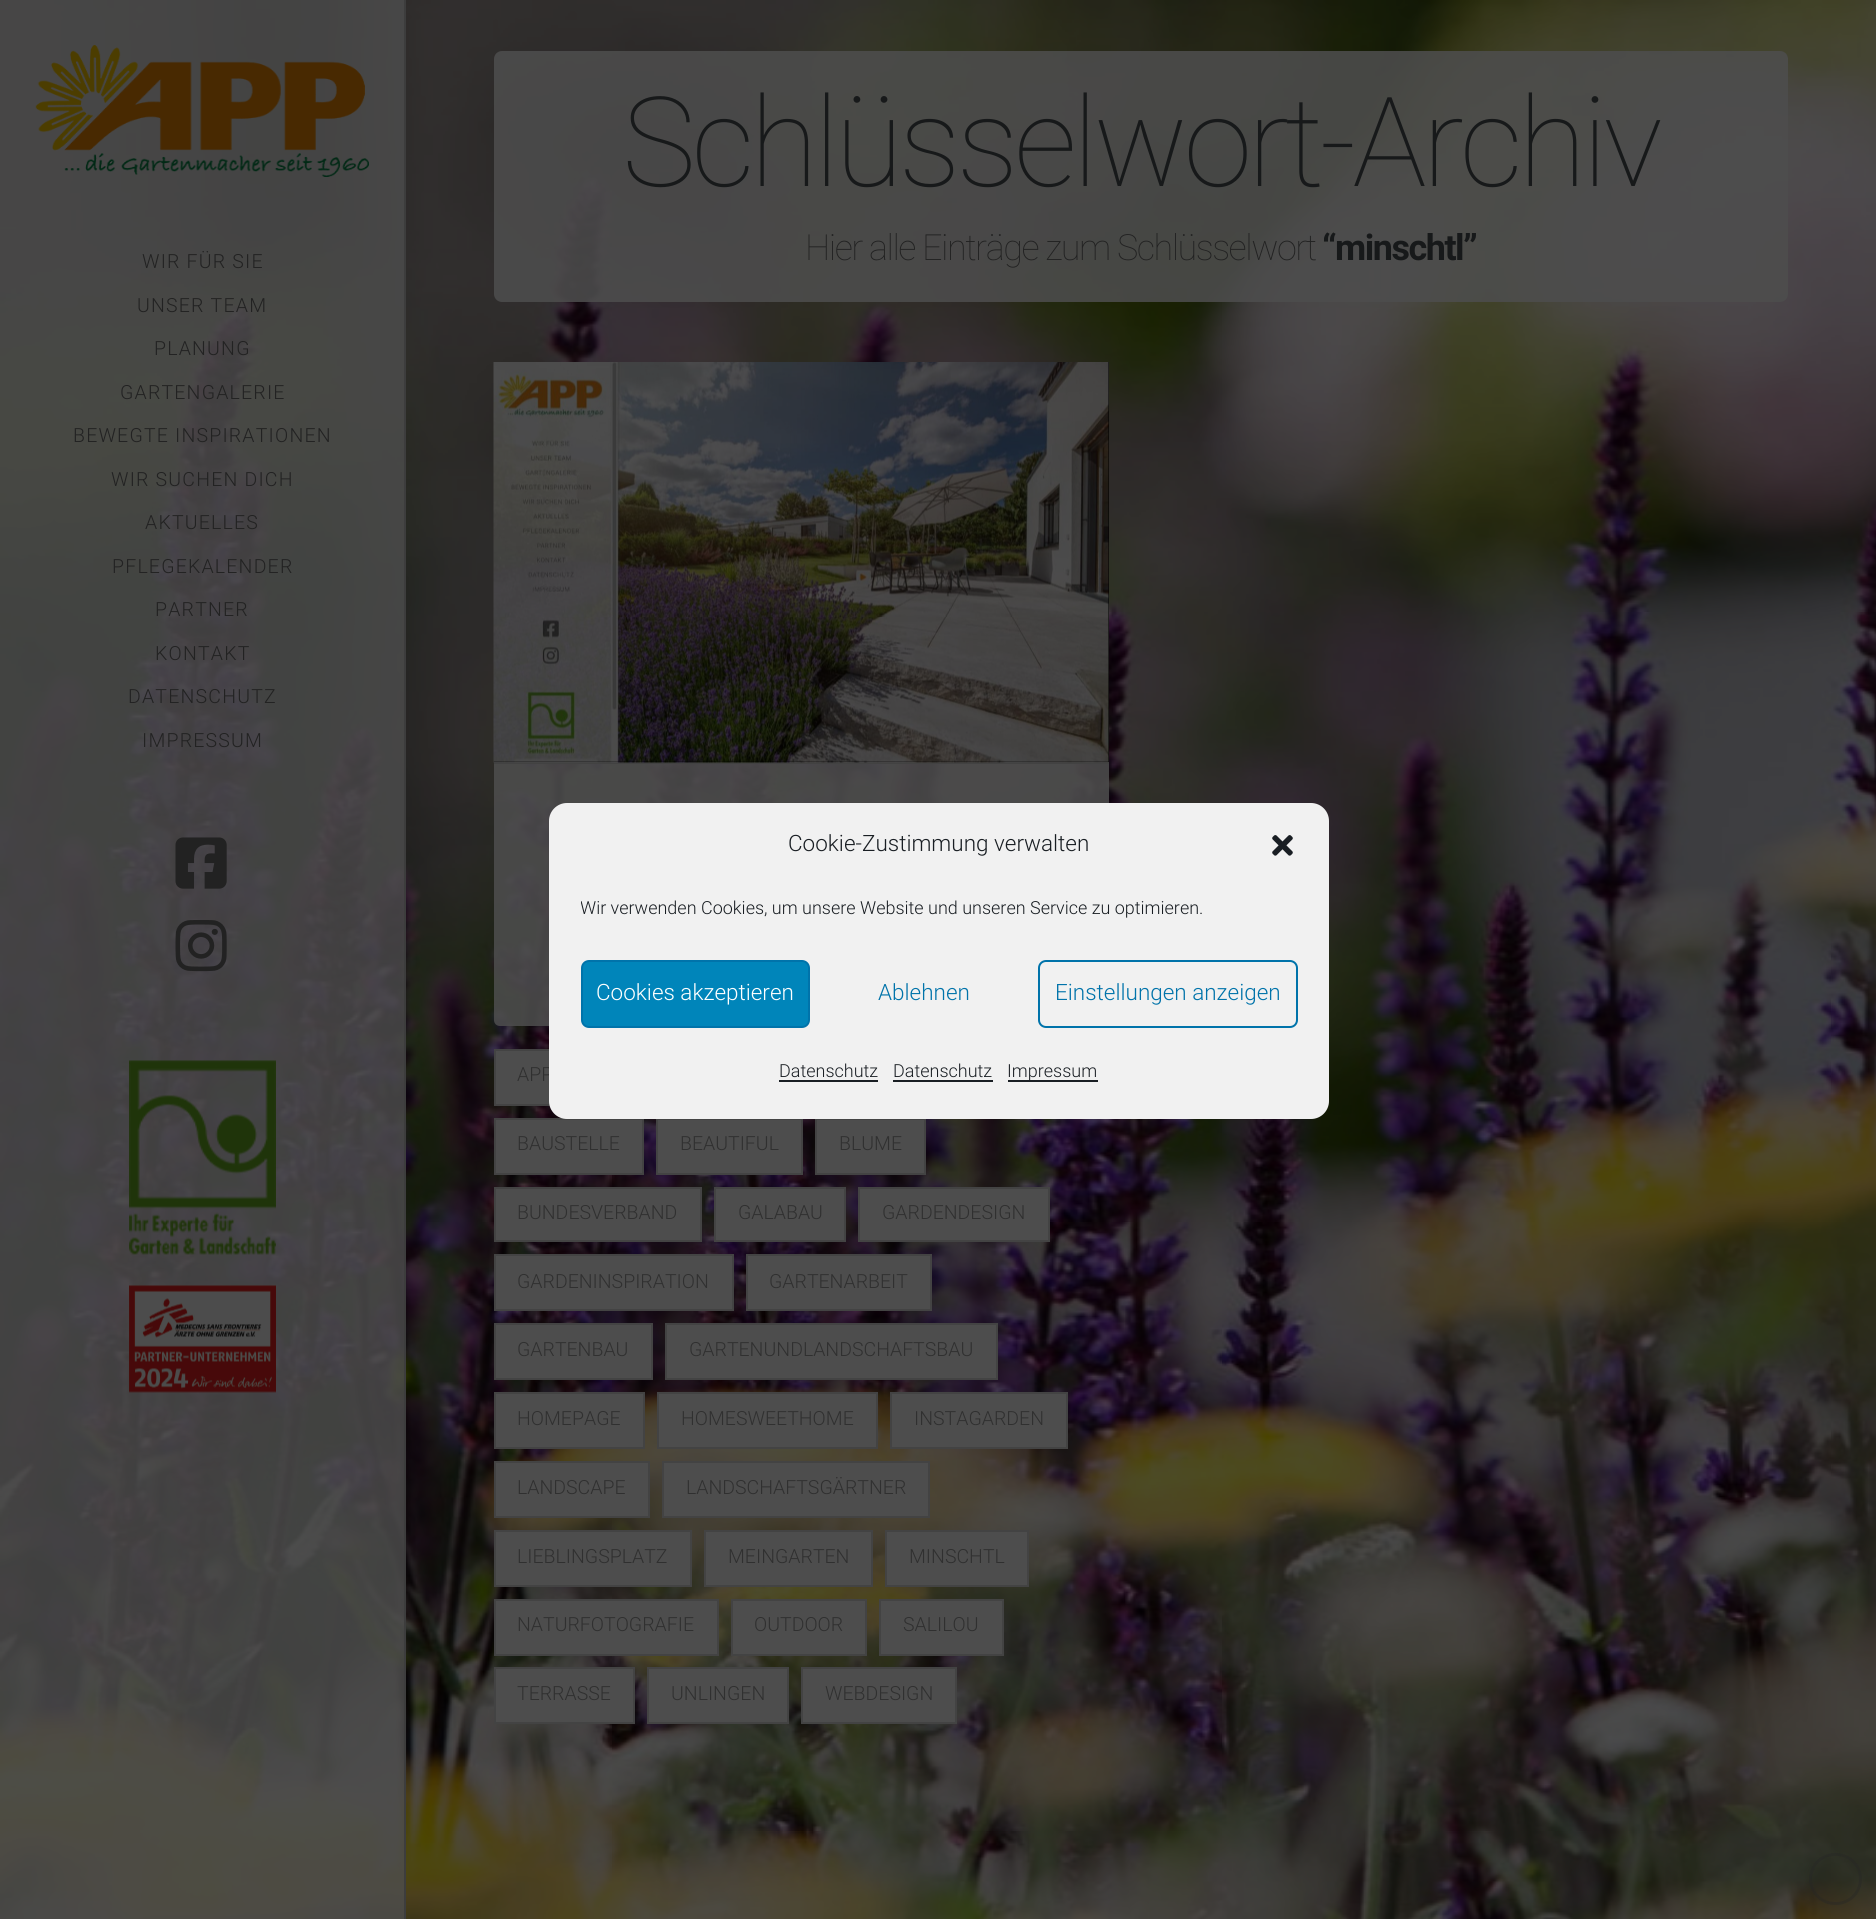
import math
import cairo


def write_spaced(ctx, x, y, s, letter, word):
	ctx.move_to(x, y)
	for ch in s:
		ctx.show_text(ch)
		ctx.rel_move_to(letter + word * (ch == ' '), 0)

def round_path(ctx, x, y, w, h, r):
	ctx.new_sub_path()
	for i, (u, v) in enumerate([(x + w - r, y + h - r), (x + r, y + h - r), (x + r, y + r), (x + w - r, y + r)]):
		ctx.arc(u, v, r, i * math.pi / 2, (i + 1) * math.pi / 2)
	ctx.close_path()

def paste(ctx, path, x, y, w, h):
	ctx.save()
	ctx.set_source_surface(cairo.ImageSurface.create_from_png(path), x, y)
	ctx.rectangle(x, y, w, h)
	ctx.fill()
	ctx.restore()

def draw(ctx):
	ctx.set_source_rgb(1, 1, 1)
	ctx.paint()
	paste(ctx, 'media/1.png', 0, 0, 1876, 1919)
	ctx.set_source_rgba(0.302, 0.302, 0.302, 0.87)
	round_path(ctx, 494, 51, 1294, 251, 8)
	ctx.fill()
	ctx.select_font_face('Roboto Thin')
	ctx.set_font_size(124.75)
	ctx.set_source_rgb(0.09, 0.098, 0.102)
	write_spaced(ctx, 622, 186, 'Schlüsselwort-Archiv', -4.5, 0)
	ctx.set_font_size(36)
	ctx.set_source_rgb(0.133, 0.133, 0.133)
	write_spaced(ctx, 805, 260, 'Hier alle Einträge zum Schlüsselwort', -1.5, 0)
	ctx.select_font_face('Roboto', cairo.FONT_SLANT_NORMAL, cairo.FONT_WEIGHT_BOLD)
	ctx.set_source_rgb(0.09, 0.098, 0.102)
	write_spaced(ctx, 1322, 260, '“minschtl”', -1.5, 0)
	ctx.set_source_rgba(0.302, 0.302, 0.302, 0.82)
	ctx.rectangle(0, 0, 404, 1919)
	ctx.fill()
	ctx.set_source_rgb(0.239, 0.239, 0.239)
	ctx.rectangle(404, 0, 2, 1919)
	ctx.fill()
	paste(ctx, 'media/2.png', 35, 45, 334, 132)
	ctx.select_font_face('Roboto Light')
	ctx.set_font_size(19.5)
	ctx.set_source_rgb(0.133, 0.133, 0.133)
	for x, y, s in [
		(142, 268, 'WIR FÜR SIE'),
		(137, 312, 'UNSER TEAM'),
		(154, 355, 'PLANUNG'),
		(120, 399, 'GARTENGALERIE'),
		(73, 442, 'BEWEGTE INSPIRATIONEN'),
		(111, 486, 'WIR SUCHEN DICH'),
		(145, 529, 'AKTUELLES'),
		(112, 573, 'PFLEGEKALENDER'),
		(155, 616, 'PARTNER'),
		(155, 660, 'KONTAKT'),
		(128, 703, 'DATENSCHUTZ'),
		(142, 747, 'IMPRESSUM'),
	]:
		write_spaced(ctx, x, y, s, 1.2, 0)
	paste(ctx, 'media/3.png', 175, 837, 52, 52)
	paste(ctx, 'media/4.png', 175, 920, 52, 52)
	paste(ctx, 'media/5.png', 129, 1060, 147, 195)
	paste(ctx, 'media/6.png', 129, 1285, 147, 108)
	ctx.set_source_rgb(0.259, 0.259, 0.259)
	ctx.rectangle(494, 762, 615, 2)
	ctx.fill()
	ctx.set_source_rgb(0, 0, 0)
	ctx.rectangle(494, 362, 615, 400)
	ctx.fill()
	paste(ctx, 'media/7.png', 493, 362, 616, 401)
	ctx.set_source_rgba(0.302, 0.302, 0.302, 0.87)
	ctx.new_path()
	ctx.move_to(494, 764)
	ctx.line_to(1109, 764)
	ctx.line_to(1109, 1020)
	ctx.curve_to(1109, 1023.5, 1106.5, 1026, 1103, 1026)
	ctx.line_to(500, 1026)
	ctx.curve_to(496.5, 1026, 494, 1023.5, 494, 1020)
	ctx.close_path()
	ctx.fill()
	ctx.set_source_rgb(0.302, 0.302, 0.302)
	ctx.rectangle(496, 1051, 54, 53)
	ctx.fill()
	ctx.rectangle(495, 1050, 265, 55)
	ctx.set_source_rgb(0.263, 0.263, 0.263)
	ctx.stroke()
	ctx.set_source_rgb(0.188, 0.188, 0.188)
	ctx.move_to(517, 1081)
	ctx.show_text('APP')
	ctx.set_source_rgb(0.302, 0.302, 0.302)
	ctx.rectangle(495, 1119, 148, 55)
	ctx.fill_preserve()
	ctx.set_source_rgb(0.263, 0.263, 0.263)
	ctx.stroke()
	ctx.set_source_rgb(0.188, 0.188, 0.188)
	ctx.move_to(517, 1150)
	ctx.show_text('BAUSTELLE')
	ctx.set_source_rgb(0.302, 0.302, 0.302)
	ctx.rectangle(657, 1119, 145, 55)
	ctx.fill_preserve()
	ctx.set_source_rgb(0.263, 0.263, 0.263)
	ctx.stroke()
	ctx.set_source_rgb(0.188, 0.188, 0.188)
	ctx.move_to(680, 1150)
	ctx.show_text('BEAUTIFUL')
	ctx.set_source_rgb(0.302, 0.302, 0.302)
	ctx.rectangle(816, 1119, 109, 55)
	ctx.fill_preserve()
	ctx.set_source_rgb(0.263, 0.263, 0.263)
	ctx.stroke()
	ctx.set_source_rgb(0.188, 0.188, 0.188)
	ctx.move_to(839, 1150)
	ctx.show_text('BLUME')
	ctx.set_source_rgb(0.302, 0.302, 0.302)
	ctx.rectangle(495, 1188, 206, 53)
	ctx.fill_preserve()
	ctx.set_source_rgb(0.263, 0.263, 0.263)
	ctx.stroke()
	ctx.set_source_rgb(0.188, 0.188, 0.188)
	ctx.move_to(517, 1219)
	ctx.show_text('BUNDESVERBAND')
	ctx.set_source_rgb(0.302, 0.302, 0.302)
	ctx.rectangle(715, 1188, 130, 53)
	ctx.fill_preserve()
	ctx.set_source_rgb(0.263, 0.263, 0.263)
	ctx.stroke()
	ctx.set_source_rgb(0.188, 0.188, 0.188)
	ctx.move_to(738, 1219)
	ctx.show_text('GALABAU')
	ctx.set_source_rgb(0.302, 0.302, 0.302)
	ctx.rectangle(859, 1188, 190, 53)
	ctx.fill_preserve()
	ctx.set_source_rgb(0.263, 0.263, 0.263)
	ctx.stroke()
	ctx.set_source_rgb(0.188, 0.188, 0.188)
	ctx.move_to(882, 1219)
	ctx.show_text('GARDENDESIGN')
	ctx.set_source_rgb(0.302, 0.302, 0.302)
	ctx.rectangle(495, 1255, 238, 55)
	ctx.fill_preserve()
	ctx.set_source_rgb(0.263, 0.263, 0.263)
	ctx.stroke()
	ctx.set_source_rgb(0.188, 0.188, 0.188)
	ctx.move_to(517, 1288)
	ctx.show_text('GARDENINSPIRATION')
	ctx.set_source_rgb(0.302, 0.302, 0.302)
	ctx.rectangle(747, 1255, 184, 55)
	ctx.fill_preserve()
	ctx.set_source_rgb(0.263, 0.263, 0.263)
	ctx.stroke()
	ctx.set_source_rgb(0.188, 0.188, 0.188)
	ctx.move_to(769, 1288)
	ctx.show_text('GARTENARBEIT')
	ctx.set_source_rgb(0.302, 0.302, 0.302)
	ctx.rectangle(495, 1324, 157, 55)
	ctx.fill_preserve()
	ctx.set_source_rgb(0.263, 0.263, 0.263)
	ctx.stroke()
	ctx.set_source_rgb(0.188, 0.188, 0.188)
	ctx.move_to(517, 1356)
	ctx.show_text('GARTENBAU')
	ctx.set_source_rgb(0.302, 0.302, 0.302)
	ctx.rectangle(666, 1324, 331, 55)
	ctx.fill_preserve()
	ctx.set_source_rgb(0.263, 0.263, 0.263)
	ctx.stroke()
	ctx.set_source_rgb(0.188, 0.188, 0.188)
	ctx.move_to(689, 1356)
	ctx.show_text('GARTENUNDLANDSCHAFTSBAU')
	ctx.set_source_rgb(0.302, 0.302, 0.302)
	ctx.rectangle(495, 1393, 149, 55)
	ctx.fill_preserve()
	ctx.set_source_rgb(0.263, 0.263, 0.263)
	ctx.stroke()
	ctx.set_source_rgb(0.188, 0.188, 0.188)
	ctx.move_to(517, 1425)
	ctx.show_text('HOMEPAGE')
	ctx.set_source_rgb(0.302, 0.302, 0.302)
	ctx.rectangle(658, 1393, 219, 55)
	ctx.fill_preserve()
	ctx.set_source_rgb(0.263, 0.263, 0.263)
	ctx.stroke()
	ctx.set_source_rgb(0.188, 0.188, 0.188)
	ctx.move_to(681, 1425)
	ctx.show_text('HOMESWEETHOME')
	ctx.set_source_rgb(0.302, 0.302, 0.302)
	ctx.rectangle(891, 1393, 176, 55)
	ctx.fill_preserve()
	ctx.set_source_rgb(0.263, 0.263, 0.263)
	ctx.stroke()
	ctx.set_source_rgb(0.188, 0.188, 0.188)
	ctx.move_to(914, 1425)
	ctx.show_text('INSTAGARDEN')
	ctx.set_source_rgb(0.302, 0.302, 0.302)
	ctx.rectangle(495, 1462, 154, 55)
	ctx.fill_preserve()
	ctx.set_source_rgb(0.263, 0.263, 0.263)
	ctx.stroke()
	ctx.set_source_rgb(0.188, 0.188, 0.188)
	ctx.move_to(517, 1494)
	ctx.show_text('LANDSCAPE')
	ctx.set_source_rgb(0.302, 0.302, 0.302)
	ctx.rectangle(663, 1462, 266, 55)
	ctx.fill_preserve()
	ctx.set_source_rgb(0.263, 0.263, 0.263)
	ctx.stroke()
	ctx.set_source_rgb(0.188, 0.188, 0.188)
	ctx.move_to(686, 1494)
	ctx.show_text('LANDSCHAFTSGÄRTNER')
	ctx.set_source_rgb(0.302, 0.302, 0.302)
	ctx.rectangle(495, 1531, 196, 55)
	ctx.fill_preserve()
	ctx.set_source_rgb(0.263, 0.263, 0.263)
	ctx.stroke()
	ctx.set_source_rgb(0.188, 0.188, 0.188)
	ctx.move_to(517, 1563)
	ctx.show_text('LIEBLINGSPLATZ')
	ctx.set_source_rgb(0.302, 0.302, 0.302)
	ctx.rectangle(705, 1531, 167, 55)
	ctx.fill_preserve()
	ctx.set_source_rgb(0.263, 0.263, 0.263)
	ctx.stroke()
	ctx.set_source_rgb(0.188, 0.188, 0.188)
	ctx.move_to(728, 1563)
	ctx.show_text('MEINGARTEN')
	ctx.set_source_rgb(0.302, 0.302, 0.302)
	ctx.rectangle(886, 1531, 142, 55)
	ctx.fill_preserve()
	ctx.set_source_rgb(0.263, 0.263, 0.263)
	ctx.stroke()
	ctx.set_source_rgb(0.188, 0.188, 0.188)
	ctx.move_to(909, 1563)
	ctx.show_text('MINSCHTL')
	ctx.set_source_rgb(0.302, 0.302, 0.302)
	ctx.rectangle(495, 1600, 223, 55)
	ctx.fill_preserve()
	ctx.set_source_rgb(0.263, 0.263, 0.263)
	ctx.stroke()
	ctx.set_source_rgb(0.188, 0.188, 0.188)
	ctx.move_to(517, 1631)
	ctx.show_text('NATURFOTOGRAFIE')
	ctx.set_source_rgb(0.302, 0.302, 0.302)
	ctx.rectangle(732, 1600, 134, 55)
	ctx.fill_preserve()
	ctx.set_source_rgb(0.263, 0.263, 0.263)
	ctx.stroke()
	ctx.set_source_rgb(0.188, 0.188, 0.188)
	ctx.move_to(754, 1631)
	ctx.show_text('OUTDOOR')
	ctx.set_source_rgb(0.302, 0.302, 0.302)
	ctx.rectangle(880, 1600, 123, 55)
	ctx.fill_preserve()
	ctx.set_source_rgb(0.263, 0.263, 0.263)
	ctx.stroke()
	ctx.set_source_rgb(0.188, 0.188, 0.188)
	ctx.move_to(903, 1631)
	ctx.show_text('SALILOU')
	ctx.set_source_rgb(0.302, 0.302, 0.302)
	ctx.rectangle(495, 1668, 139, 55)
	ctx.fill_preserve()
	ctx.set_source_rgb(0.263, 0.263, 0.263)
	ctx.stroke()
	ctx.set_source_rgb(0.188, 0.188, 0.188)
	ctx.move_to(517, 1700)
	ctx.show_text('TERRASSE')
	ctx.set_source_rgb(0.302, 0.302, 0.302)
	ctx.rectangle(648, 1668, 140, 55)
	ctx.fill_preserve()
	ctx.set_source_rgb(0.263, 0.263, 0.263)
	ctx.stroke()
	ctx.set_source_rgb(0.188, 0.188, 0.188)
	ctx.move_to(671, 1700)
	ctx.show_text('UNLINGEN')
	ctx.set_source_rgb(0.302, 0.302, 0.302)
	ctx.rectangle(802, 1668, 154, 55)
	ctx.fill_preserve()
	ctx.set_source_rgb(0.263, 0.263, 0.263)
	ctx.stroke()
	ctx.set_source_rgb(0.188, 0.188, 0.188)
	ctx.move_to(825, 1700)
	ctx.show_text('WEBDESIGN')
	round_path(ctx, 1810.5, 1854.5, 50, 49, 24.5)
	ctx.set_source_rgba(0.153, 0.153, 0.153, 0.38)
	ctx.set_line_width(3)
	ctx.stroke()
	ctx.set_source_rgb(0.945, 0.945, 0.945)
	round_path(ctx, 550, 804, 778, 314, 17)
	ctx.fill_preserve()
	ctx.set_line_width(2)
	ctx.stroke()
	ctx.set_font_size(22.5)
	ctx.set_source_rgb(0.098, 0.118, 0.137)
	ctx.move_to(788, 851)
	ctx.show_text('Cookie-Zustimmung verwalten')
	paste(ctx, 'media/8.png', 1272, 835, 21, 21)
	ctx.save()
	ctx.rectangle(581, 896, 717, 34)
	ctx.clip()
	ctx.set_font_size(18)
	ctx.move_to(580, 914)
	ctx.show_text('Wir verwenden Cookies, um unsere Website und unseren Service zu optimieren.')
	ctx.restore()
	ctx.set_source_rgb(0, 0.522, 0.729)
	round_path(ctx, 582, 961, 227, 66, 7)
	ctx.fill_preserve()
	ctx.set_source_rgb(0, 0.451, 0.667)
	ctx.stroke()
	ctx.set_source_rgb(1, 1, 1)
	ctx.move_to(596, 1000)
	ctx.show_text('Cookies akzeptieren')
	ctx.set_source_rgb(0, 0.451, 0.667)
	ctx.move_to(878, 1000)
	ctx.show_text('Ablehnen')
	round_path(ctx, 1039, 961, 258, 66, 7)
	ctx.stroke()
	ctx.move_to(1055, 1000)
	ctx.show_text('Einstellungen anzeigen')
	ctx.set_font_size(18)
	ctx.set_source_rgb(0.098, 0.118, 0.137)
	ctx.move_to(779, 1077)
	ctx.show_text('Datenschutz')
	ctx.rectangle(779, 1080, 99, 2)
	ctx.fill()
	ctx.move_to(893, 1077)
	ctx.show_text('Datenschutz')
	ctx.rectangle(893, 1080, 100, 2)
	ctx.fill()
	ctx.rectangle(1008, 1080, 90, 2)
	ctx.fill()
	ctx.move_to(1007, 1077)
	ctx.show_text('Impressum')


surface = cairo.ImageSurface(cairo.FORMAT_RGB24, 1876, 1919)
ctx = cairo.Context(surface)
options = cairo.FontOptions()
options.set_hint_metrics(cairo.HINT_METRICS_OFF)
options.set_hint_style(cairo.HINT_STYLE_NONE)
ctx.set_font_options(options)
ctx.set_miter_limit(4)
draw(ctx)
surface.write_to_png('image.png')
